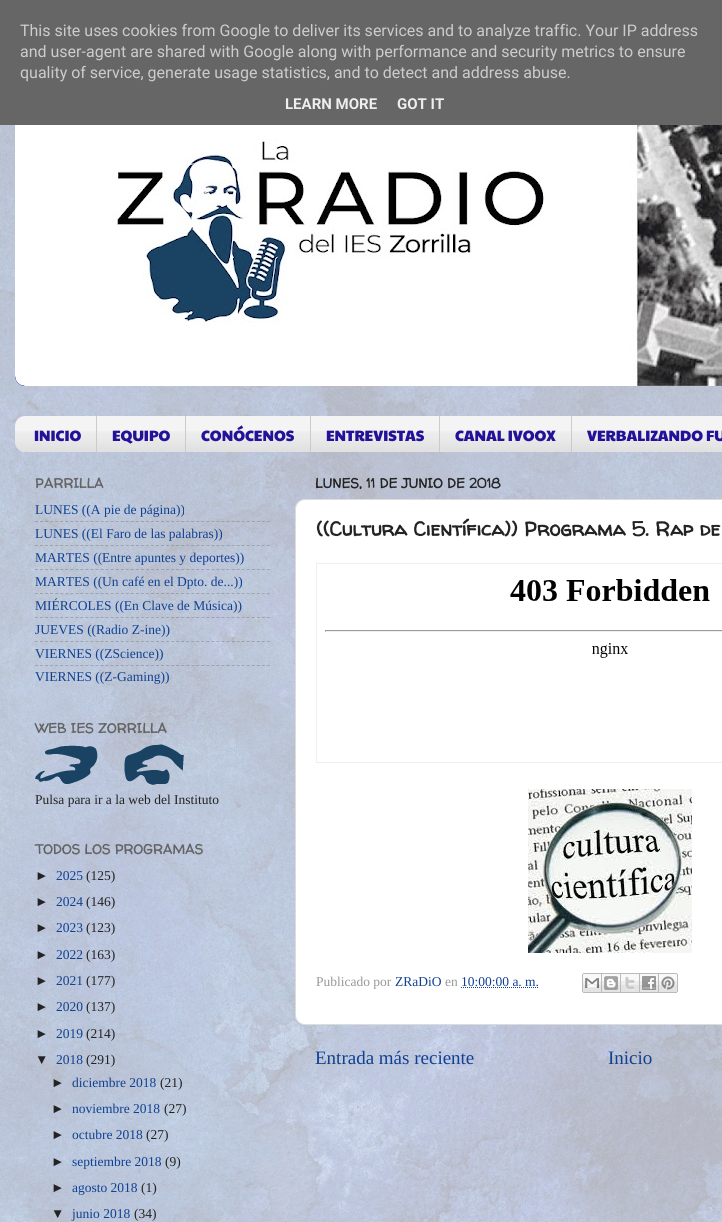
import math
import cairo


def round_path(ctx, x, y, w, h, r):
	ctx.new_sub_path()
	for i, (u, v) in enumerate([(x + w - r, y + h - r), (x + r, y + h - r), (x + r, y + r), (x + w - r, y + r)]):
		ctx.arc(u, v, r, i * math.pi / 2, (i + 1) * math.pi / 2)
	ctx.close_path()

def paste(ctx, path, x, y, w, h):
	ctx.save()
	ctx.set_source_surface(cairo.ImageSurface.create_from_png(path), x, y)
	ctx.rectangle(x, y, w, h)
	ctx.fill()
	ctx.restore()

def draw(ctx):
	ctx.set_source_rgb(1, 1, 1)
	ctx.paint()
	paste(ctx, 'media/1.png', 0, 125, 722, 1097)
	paste(ctx, 'media/2.png', 0, 125, 722, 1097)
	ctx.set_source_rgb(0.063, 0.255, 0.569)
	round_path(ctx, 15, 75, 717, 311, 10)
	ctx.fill()
	ctx.set_source_rgb(0.4, 0.4, 0.4)
	ctx.rectangle(0, 0, 722, 125)
	ctx.fill()
	ctx.select_font_face('Roboto')
	ctx.set_font_size(16)
	ctx.set_source_rgb(0.8, 0.8, 0.8)
	for x, y, s in [
		(20, 36, 'This site uses cookies from Google to deliver its services and to analyze traffic. Your IP address'),
		(20, 57, 'and user-agent are shared with Google along with performance and security metrics to ensure'),
		(20, 78, 'quality of service, generate usage statistics, and to detect and address abuse.'),
	]:
		ctx.move_to(x, y)
		ctx.show_text(s)
	ctx.select_font_face('Roboto', cairo.FONT_SLANT_NORMAL, cairo.FONT_WEIGHT_BOLD)
	ctx.set_font_size(15)
	ctx.set_source_rgb(0.933, 0.933, 0.933)
	ctx.move_to(285, 109)
	ctx.show_text('LEARN MORE')
	ctx.move_to(397, 109)
	ctx.show_text('GOT IT')
	paste(ctx, 'media/3.png', 15, 125, 707, 261)
	ctx.set_source_rgb(0.957, 0.957, 0.957)
	round_path(ctx, 15, 416, 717, 36, 10)
	ctx.fill()
	paste(ctx, 'media/4.png', 15, 431, 707, 21)
	ctx.set_source_rgb(0.796, 0.796, 0.796)
	ctx.rectangle(96, 416, 1, 36)
	ctx.fill()
	ctx.select_font_face('Paytone One')
	ctx.set_source_rgb(0.133, 0.067, 0.6)
	ctx.move_to(34, 441)
	ctx.show_text('INICIO')
	ctx.set_source_rgb(0.796, 0.796, 0.796)
	ctx.rectangle(185, 416, 1, 36)
	ctx.fill()
	ctx.set_source_rgb(0.133, 0.067, 0.6)
	ctx.move_to(112, 441)
	ctx.show_text('EQUIPO')
	ctx.set_source_rgb(0.796, 0.796, 0.796)
	ctx.rectangle(310, 416, 1, 36)
	ctx.fill()
	ctx.set_source_rgb(0.133, 0.067, 0.6)
	ctx.move_to(201, 441)
	ctx.show_text('CONÓCENOS')
	ctx.set_source_rgb(0.796, 0.796, 0.796)
	ctx.rectangle(439, 416, 1, 36)
	ctx.fill()
	ctx.set_source_rgb(0.133, 0.067, 0.6)
	ctx.move_to(326, 441)
	ctx.show_text('ENTREVISTAS')
	ctx.set_source_rgb(0.796, 0.796, 0.796)
	ctx.rectangle(571, 416, 1, 36)
	ctx.fill()
	ctx.set_source_rgb(0.133, 0.067, 0.6)
	ctx.move_to(455, 441)
	ctx.show_text('CANAL IVOOX')
	ctx.move_to(587, 441)
	ctx.show_text('VERBALIZANDO FU')
	ctx.select_font_face('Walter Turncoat', cairo.FONT_SLANT_NORMAL, cairo.FONT_WEIGHT_BOLD)
	ctx.set_font_size(13.5)
	ctx.set_source_rgb(0.388, 0.388, 0.388)
	ctx.move_to(35, 488)
	ctx.show_text('PARRILLA')
	ctx.select_font_face('Liberation Serif')
	ctx.set_source_rgb(0.063, 0.255, 0.569)
	ctx.move_to(35, 514)
	ctx.show_text('LUNES ((A pie de página))')
	ctx.new_path()
	ctx.move_to(35, 521.5)
	ctx.line_to(270, 521.5)
	ctx.set_source_rgba(0.502, 0.502, 0.502, 0.5)
	ctx.set_line_width(1)
	ctx.set_dash([3, 2.04])
	ctx.stroke()
	ctx.set_source_rgb(0.063, 0.255, 0.569)
	ctx.move_to(35, 538)
	ctx.show_text('LUNES ((El Faro de las palabras))')
	ctx.new_path()
	ctx.move_to(35, 545.5)
	ctx.line_to(270, 545.5)
	ctx.set_source_rgba(0.502, 0.502, 0.502, 0.5)
	ctx.stroke()
	ctx.set_source_rgb(0.063, 0.255, 0.569)
	ctx.move_to(35, 562)
	ctx.show_text('MARTES ((Entre apuntes y deportes))')
	ctx.new_path()
	ctx.move_to(35, 569.5)
	ctx.line_to(270, 569.5)
	ctx.set_source_rgba(0.502, 0.502, 0.502, 0.5)
	ctx.stroke()
	ctx.set_source_rgb(0.063, 0.255, 0.569)
	ctx.move_to(35, 586)
	ctx.show_text('MARTES ((Un café en el Dpto. de...))')
	ctx.new_path()
	ctx.move_to(35, 593.5)
	ctx.line_to(270, 593.5)
	ctx.set_source_rgba(0.502, 0.502, 0.502, 0.5)
	ctx.stroke()
	ctx.set_source_rgb(0.063, 0.255, 0.569)
	ctx.move_to(35, 610)
	ctx.show_text('MIÉRCOLES ((En Clave de Música))')
	ctx.new_path()
	ctx.move_to(35, 617.5)
	ctx.line_to(270, 617.5)
	ctx.set_source_rgba(0.502, 0.502, 0.502, 0.5)
	ctx.stroke()
	ctx.set_source_rgb(0.063, 0.255, 0.569)
	ctx.move_to(35, 634)
	ctx.show_text('JUEVES ((Radio Z-ine))')
	ctx.new_path()
	ctx.move_to(35, 641.5)
	ctx.line_to(270, 641.5)
	ctx.set_source_rgba(0.502, 0.502, 0.502, 0.5)
	ctx.stroke()
	ctx.set_source_rgb(0.063, 0.255, 0.569)
	ctx.move_to(35, 658)
	ctx.show_text('VIERNES ((ZScience))')
	ctx.new_path()
	ctx.move_to(35, 665.5)
	ctx.line_to(270, 665.5)
	ctx.set_source_rgba(0.502, 0.502, 0.502, 0.5)
	ctx.stroke()
	ctx.set_source_rgb(0.063, 0.255, 0.569)
	ctx.move_to(35, 681)
	ctx.show_text('VIERNES ((Z-Gaming))')
	ctx.select_font_face('Walter Turncoat', cairo.FONT_SLANT_NORMAL, cairo.FONT_WEIGHT_BOLD)
	ctx.set_source_rgb(0.388, 0.388, 0.388)
	ctx.move_to(35, 733)
	ctx.show_text('WEB IES ZORRILLA')
	paste(ctx, 'media/5.png', 35, 744, 149, 41)
	ctx.select_font_face('Liberation Serif')
	ctx.set_source_rgb(0.137, 0.137, 0.137)
	ctx.move_to(35, 804)
	ctx.show_text('Pulsa para ir a la web del Instituto')
	ctx.select_font_face('Walter Turncoat', cairo.FONT_SLANT_NORMAL, cairo.FONT_WEIGHT_BOLD)
	ctx.set_source_rgb(0.388, 0.388, 0.388)
	ctx.move_to(35, 854)
	ctx.show_text('TODOS LOS PROGRAMAS')
	ctx.select_font_face('Liberation Sans')
	ctx.set_source_rgb(0.137, 0.137, 0.137)
	ctx.move_to(35, 880)
	ctx.show_text('►')
	ctx.select_font_face('Liberation Serif')
	ctx.set_source_rgb(0.063, 0.255, 0.569)
	ctx.move_to(56, 880)
	ctx.show_text('2025')
	ctx.set_source_rgb(0.137, 0.137, 0.137)
	ctx.move_to(86, 880)
	ctx.show_text('(125)')
	ctx.select_font_face('Liberation Sans')
	ctx.move_to(35, 906)
	ctx.show_text('►')
	ctx.select_font_face('Liberation Serif')
	ctx.set_source_rgb(0.063, 0.255, 0.569)
	ctx.move_to(56, 906)
	ctx.show_text('2024')
	ctx.set_source_rgb(0.137, 0.137, 0.137)
	ctx.move_to(86, 906)
	ctx.show_text('(146)')
	ctx.select_font_face('Liberation Sans')
	ctx.move_to(35, 932)
	ctx.show_text('►')
	ctx.select_font_face('Liberation Serif')
	ctx.set_source_rgb(0.063, 0.255, 0.569)
	ctx.move_to(56, 932)
	ctx.show_text('2023')
	ctx.set_source_rgb(0.137, 0.137, 0.137)
	ctx.move_to(86, 932)
	ctx.show_text('(123)')
	ctx.select_font_face('Liberation Sans')
	ctx.move_to(35, 959)
	ctx.show_text('►')
	ctx.select_font_face('Liberation Serif')
	ctx.set_source_rgb(0.063, 0.255, 0.569)
	ctx.move_to(56, 959)
	ctx.show_text('2022')
	ctx.set_source_rgb(0.137, 0.137, 0.137)
	ctx.move_to(86, 959)
	ctx.show_text('(163)')
	ctx.select_font_face('Liberation Sans')
	ctx.move_to(35, 985)
	ctx.show_text('►')
	ctx.select_font_face('Liberation Serif')
	ctx.set_source_rgb(0.063, 0.255, 0.569)
	ctx.move_to(56, 985)
	ctx.show_text('2021')
	ctx.set_source_rgb(0.137, 0.137, 0.137)
	ctx.move_to(86, 985)
	ctx.show_text('(177)')
	ctx.select_font_face('Liberation Sans')
	ctx.move_to(35, 1011)
	ctx.show_text('►')
	ctx.select_font_face('Liberation Serif')
	ctx.set_source_rgb(0.063, 0.255, 0.569)
	ctx.move_to(56, 1011)
	ctx.show_text('2020')
	ctx.set_source_rgb(0.137, 0.137, 0.137)
	ctx.move_to(86, 1011)
	ctx.show_text('(137)')
	ctx.select_font_face('Liberation Sans')
	ctx.move_to(35, 1038)
	ctx.show_text('►')
	ctx.select_font_face('Liberation Serif')
	ctx.set_source_rgb(0.063, 0.255, 0.569)
	ctx.move_to(56, 1038)
	ctx.show_text('2019')
	ctx.set_source_rgb(0.137, 0.137, 0.137)
	ctx.move_to(86, 1038)
	ctx.show_text('(214)')
	ctx.select_font_face('Liberation Sans')
	ctx.move_to(35, 1064)
	ctx.show_text('▼')
	ctx.select_font_face('Liberation Serif')
	ctx.set_source_rgb(0.063, 0.255, 0.569)
	ctx.move_to(56, 1064)
	ctx.show_text('2018')
	ctx.set_source_rgb(0.137, 0.137, 0.137)
	ctx.move_to(86, 1064)
	ctx.show_text('(291)')
	ctx.select_font_face('Liberation Sans')
	ctx.move_to(51, 1087)
	ctx.show_text('►')
	ctx.select_font_face('Liberation Serif')
	ctx.set_source_rgb(0.063, 0.255, 0.569)
	ctx.move_to(72, 1087)
	ctx.show_text('diciembre 2018')
	ctx.set_source_rgb(0.137, 0.137, 0.137)
	ctx.move_to(160, 1087)
	ctx.show_text('(21)')
	ctx.select_font_face('Liberation Sans')
	ctx.move_to(51, 1113)
	ctx.show_text('►')
	ctx.select_font_face('Liberation Serif')
	ctx.set_source_rgb(0.063, 0.255, 0.569)
	ctx.move_to(72, 1113)
	ctx.show_text('noviembre 2018')
	ctx.set_source_rgb(0.137, 0.137, 0.137)
	ctx.move_to(164, 1113)
	ctx.show_text('(27)')
	ctx.select_font_face('Liberation Sans')
	ctx.move_to(51, 1139)
	ctx.show_text('►')
	ctx.select_font_face('Liberation Serif')
	ctx.set_source_rgb(0.063, 0.255, 0.569)
	ctx.move_to(72, 1139)
	ctx.show_text('octubre 2018')
	ctx.set_source_rgb(0.137, 0.137, 0.137)
	ctx.move_to(146, 1139)
	ctx.show_text('(27)')
	ctx.select_font_face('Liberation Sans')
	ctx.move_to(51, 1166)
	ctx.show_text('►')
	ctx.select_font_face('Liberation Serif')
	ctx.set_source_rgb(0.063, 0.255, 0.569)
	ctx.move_to(72, 1166)
	ctx.show_text('septiembre 2018')
	ctx.set_source_rgb(0.137, 0.137, 0.137)
	ctx.move_to(165, 1166)
	ctx.show_text('(9)')
	ctx.select_font_face('Liberation Sans')
	ctx.move_to(51, 1192)
	ctx.show_text('►')
	ctx.select_font_face('Liberation Serif')
	ctx.set_source_rgb(0.063, 0.255, 0.569)
	ctx.move_to(72, 1192)
	ctx.show_text('agosto 2018')
	ctx.set_source_rgb(0.137, 0.137, 0.137)
	ctx.move_to(141, 1192)
	ctx.show_text('(1)')
	ctx.select_font_face('Liberation Sans')
	ctx.move_to(51, 1218)
	ctx.show_text('▼')
	ctx.select_font_face('Liberation Serif')
	ctx.set_source_rgb(0.063, 0.255, 0.569)
	ctx.move_to(72, 1218)
	ctx.show_text('junio 2018')
	ctx.set_source_rgb(0.137, 0.137, 0.137)
	ctx.move_to(134, 1218)
	ctx.show_text('(34)')
	ctx.select_font_face('Walter Turncoat', cairo.FONT_SLANT_NORMAL, cairo.FONT_WEIGHT_BOLD)
	ctx.move_to(315, 488)
	ctx.show_text('LUNES, 11 DE JUNIO DE 2018')
	ctx.set_source_rgb(1, 1, 1)
	round_path(ctx, 295.5, 499.5, 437, 525, 9.5)
	ctx.fill_preserve()
	ctx.set_source_rgb(0.863, 0.863, 0.863)
	ctx.set_dash([])
	ctx.stroke()
	ctx.set_font_size(20)
	ctx.set_source_rgb(0.137, 0.137, 0.137)
	ctx.move_to(316, 536)
	ctx.show_text('((Cultura Científica)) Programa 5. Rap de')
	ctx.rectangle(316.5, 563.5, 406, 199)
	ctx.set_source_rgb(0.933, 0.933, 0.933)
	ctx.stroke()
	paste(ctx, 'media/6.png', 325, 579, 397, 79)
	paste(ctx, 'media/7.png', 528, 789, 164, 164)
	ctx.select_font_face('Liberation Serif')
	ctx.set_font_size(13.5)
	ctx.set_source_rgb(0.596, 0.596, 0.596)
	ctx.move_to(316, 986)
	ctx.show_text('Publicado por')
	ctx.set_source_rgb(0.063, 0.255, 0.569)
	ctx.move_to(395, 986)
	ctx.show_text('ZRaDiO')
	ctx.set_source_rgb(0.596, 0.596, 0.596)
	ctx.move_to(445, 986)
	ctx.show_text('en')
	ctx.set_source_rgb(0.063, 0.255, 0.569)
	ctx.move_to(461, 986)
	ctx.show_text('10:00:00 a. m.')
	ctx.new_path()
	ctx.move_to(461, 987.5)
	ctx.line_to(539, 987.5)
	ctx.set_dash([1, 1])
	ctx.stroke()
	paste(ctx, 'media/8.png', 582, 973, 20, 20)
	paste(ctx, 'media/9.png', 602, 973, 19, 20)
	paste(ctx, 'media/10.png', 621, 973, 19, 20)
	paste(ctx, 'media/11.png', 640, 973, 19, 20)
	paste(ctx, 'media/12.png', 659, 973, 19, 20)
	ctx.set_font_size(19)
	ctx.move_to(315, 1064)
	ctx.show_text('Entrada más reciente')
	ctx.move_to(608, 1064)
	ctx.show_text('Inicio')


surface = cairo.ImageSurface(cairo.FORMAT_RGB24, 722, 1222)
ctx = cairo.Context(surface)
options = cairo.FontOptions()
options.set_hint_metrics(cairo.HINT_METRICS_OFF)
options.set_hint_style(cairo.HINT_STYLE_NONE)
ctx.set_font_options(options)
ctx.set_miter_limit(4)
draw(ctx)
surface.write_to_png('image.png')
